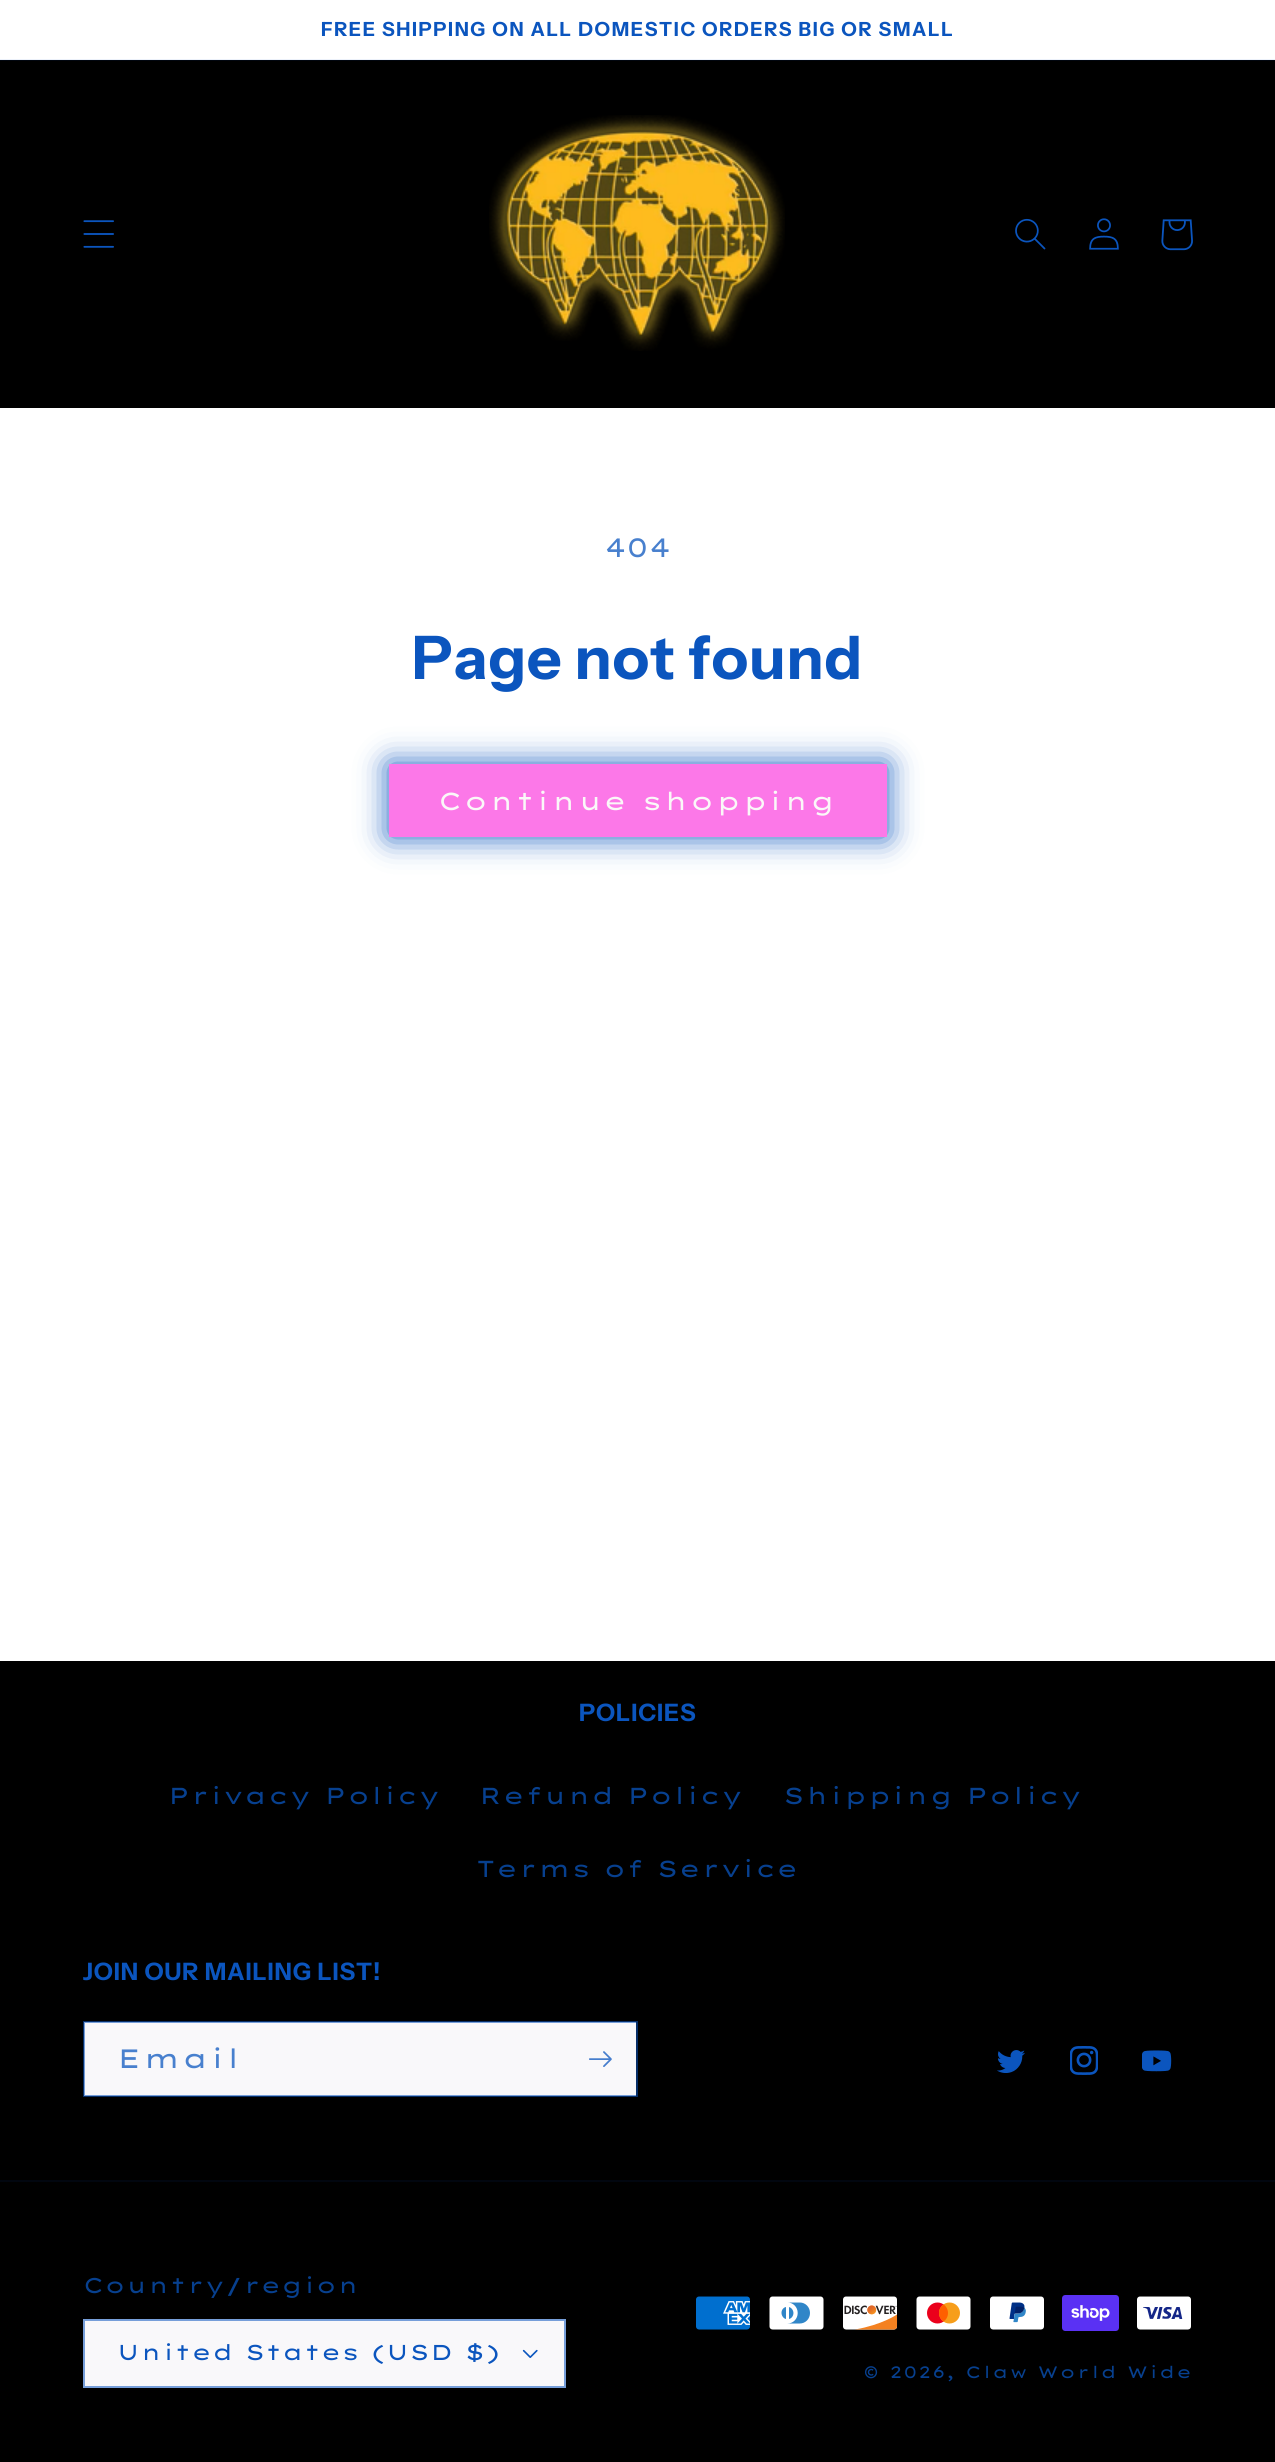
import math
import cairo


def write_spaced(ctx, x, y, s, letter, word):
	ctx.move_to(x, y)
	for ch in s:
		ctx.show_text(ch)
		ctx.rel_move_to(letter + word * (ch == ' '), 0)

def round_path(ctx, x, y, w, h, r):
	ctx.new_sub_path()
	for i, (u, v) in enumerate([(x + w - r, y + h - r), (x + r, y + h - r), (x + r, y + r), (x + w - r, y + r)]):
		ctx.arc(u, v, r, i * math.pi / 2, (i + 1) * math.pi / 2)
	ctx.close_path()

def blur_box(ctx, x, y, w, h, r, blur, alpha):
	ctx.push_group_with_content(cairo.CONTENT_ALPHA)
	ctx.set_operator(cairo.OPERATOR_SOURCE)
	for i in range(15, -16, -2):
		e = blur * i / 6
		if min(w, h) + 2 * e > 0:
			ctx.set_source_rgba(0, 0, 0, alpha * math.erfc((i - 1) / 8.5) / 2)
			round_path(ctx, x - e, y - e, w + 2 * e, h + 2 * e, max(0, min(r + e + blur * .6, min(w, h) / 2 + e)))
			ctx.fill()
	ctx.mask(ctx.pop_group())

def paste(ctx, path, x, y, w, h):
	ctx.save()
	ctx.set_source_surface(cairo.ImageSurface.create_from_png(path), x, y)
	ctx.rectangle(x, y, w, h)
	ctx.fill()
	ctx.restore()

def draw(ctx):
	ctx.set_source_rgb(1, 1, 1)
	ctx.paint()
	ctx.set_source_rgb(0.922, 0.945, 0.98)
	ctx.rectangle(0, 59, 1275, 1)
	ctx.fill()
	ctx.select_font_face('Instrument Sans', cairo.FONT_SLANT_NORMAL, cairo.FONT_WEIGHT_BOLD)
	ctx.set_font_size(19.5)
	ctx.set_source_rgb(0.043, 0.333, 0.745)
	write_spaced(ctx, 321, 36, 'FREE SHIPPING ON ALL DOMESTIC ORDERS BIG OR SMALL', 1.65, 0)
	ctx.set_source_rgb(0, 0, 0)
	ctx.rectangle(0, 61, 1275, 347)
	ctx.fill()
	ctx.set_source_rgb(0.004, 0.027, 0.059)
	ctx.rectangle(0, 60, 1275, 1)
	ctx.fill()
	paste(ctx, 'media/1.png', 83, 220, 31, 28)
	paste(ctx, 'media/2.png', 489, 115, 296, 236)
	paste(ctx, 'media/3.png', 1015, 218, 31, 32)
	paste(ctx, 'media/4.png', 1089, 218, 30, 32)
	paste(ctx, 'media/5.png', 1161, 219, 32, 32)
	ctx.select_font_face('Lexend Zetta')
	ctx.set_font_size(26.5)
	ctx.set_source_rgb(0.282, 0.502, 0.808)
	write_spaced(ctx, 605, 557, '404', 1, 0)
	ctx.select_font_face('Instrument Sans', cairo.FONT_SLANT_NORMAL, cairo.FONT_WEIGHT_BOLD)
	ctx.set_font_size(60)
	ctx.set_source_rgb(0.043, 0.333, 0.745)
	write_spaced(ctx, 412, 679, 'Page not found', 0.9, 0)
	ctx.set_source_rgb(0.043, 0.333, 0.745)
	blur_box(ctx, 389, 764, 498, 73, 0, 15, 0.95)
	ctx.set_source_rgb(0.988, 0.471, 0.91)
	ctx.rectangle(389, 764, 498, 73)
	ctx.fill()
	ctx.select_font_face('Lexend Zetta')
	ctx.set_font_size(24.75)
	ctx.set_source_rgb(0.98, 0.969, 0.969)
	write_spaced(ctx, 438, 810, 'Continue shopping', 1.65, 0)
	ctx.set_source_rgb(0, 0, 0)
	ctx.rectangle(0, 1661, 1275, 801)
	ctx.fill()
	ctx.select_font_face('Instrument Sans', cairo.FONT_SLANT_NORMAL, cairo.FONT_WEIGHT_BOLD)
	ctx.set_font_size(24)
	ctx.set_source_rgb(0.043, 0.333, 0.745)
	write_spaced(ctx, 579, 1721, 'POLICIES', 0.9, 0)
	ctx.select_font_face('Lexend Zetta')
	ctx.set_font_size(23.1)
	ctx.set_source_rgb(0.031, 0.251, 0.561)
	for x, y, s in [
		(168, 1804, 'Privacy Policy'),
		(479, 1804, 'Refund Policy'),
		(783, 1804, 'Shipping Policy'),
		(476, 1877, 'Terms of Service'),
	]:
		write_spaced(ctx, x, y, s, 1, 0)
	ctx.select_font_face('Instrument Sans', cairo.FONT_SLANT_NORMAL, cairo.FONT_WEIGHT_BOLD)
	ctx.set_font_size(24)
	ctx.set_source_rgb(0.043, 0.333, 0.745)
	write_spaced(ctx, 83, 1980, 'JOIN OUR MAILING LIST!', 0.9, 0)
	ctx.set_source_rgb(0.973, 0.969, 0.98)
	ctx.rectangle(84, 2022, 552, 74)
	ctx.fill()
	ctx.rectangle(84, 2022, 553, 74)
	ctx.set_source_rgba(0.043, 0.333, 0.745, 0.55)
	ctx.stroke()
	ctx.select_font_face('Lexend Zetta')
	ctx.set_font_size(26.5)
	ctx.set_source_rgb(0.282, 0.502, 0.808)
	write_spaced(ctx, 117, 2068, 'Email', 1.65, 0)
	paste(ctx, 'media/6.png', 589, 2051, 23, 16)
	paste(ctx, 'media/7.png', 997, 2050, 28, 23)
	paste(ctx, 'media/8.png', 1070, 2046, 28, 29)
	paste(ctx, 'media/9.png', 1142, 2050, 30, 22)
	ctx.set_source_rgb(0.004, 0.027, 0.059)
	ctx.rectangle(0, 2180, 1275, 2)
	ctx.fill()
	ctx.set_font_size(21.5)
	ctx.set_source_rgb(0.031, 0.251, 0.561)
	write_spaced(ctx, 83, 2293, 'Country/region', 0.7, 0)
	ctx.set_source_rgb(0.973, 0.969, 0.98)
	ctx.rectangle(85, 2321, 479, 65)
	ctx.fill()
	paste(ctx, 'media/10.png', 522, 2349, 16, 9)
	ctx.rectangle(84, 2320, 481, 67)
	ctx.set_source_rgb(0.463, 0.62, 0.851)
	ctx.stroke()
	ctx.set_source_rgb(0.043, 0.333, 0.745)
	write_spaced(ctx, 117, 2360, 'United States (USD $)', 0.7, 0)
	paste(ctx, 'media/11.png', 696, 2296, 54, 34)
	paste(ctx, 'media/12.png', 769, 2296, 55, 34)
	paste(ctx, 'media/13.png', 843, 2296, 55, 34)
	paste(ctx, 'media/14.png', 916, 2296, 55, 34)
	paste(ctx, 'media/15.png', 990, 2296, 54, 34)
	paste(ctx, 'media/16.png', 1062, 2295, 57, 36)
	paste(ctx, 'media/17.png', 1137, 2296, 54, 34)
	ctx.set_font_size(16.5)
	ctx.set_source_rgb(0.031, 0.251, 0.561)
	write_spaced(ctx, 863, 2378, '© 2026, Claw World Wide', 1.2, 0)


surface = cairo.ImageSurface(cairo.FORMAT_RGB24, 1275, 2462)
ctx = cairo.Context(surface)
options = cairo.FontOptions()
options.set_hint_metrics(cairo.HINT_METRICS_OFF)
options.set_hint_style(cairo.HINT_STYLE_NONE)
ctx.set_font_options(options)
ctx.set_miter_limit(4)
draw(ctx)
surface.write_to_png('image.png')
